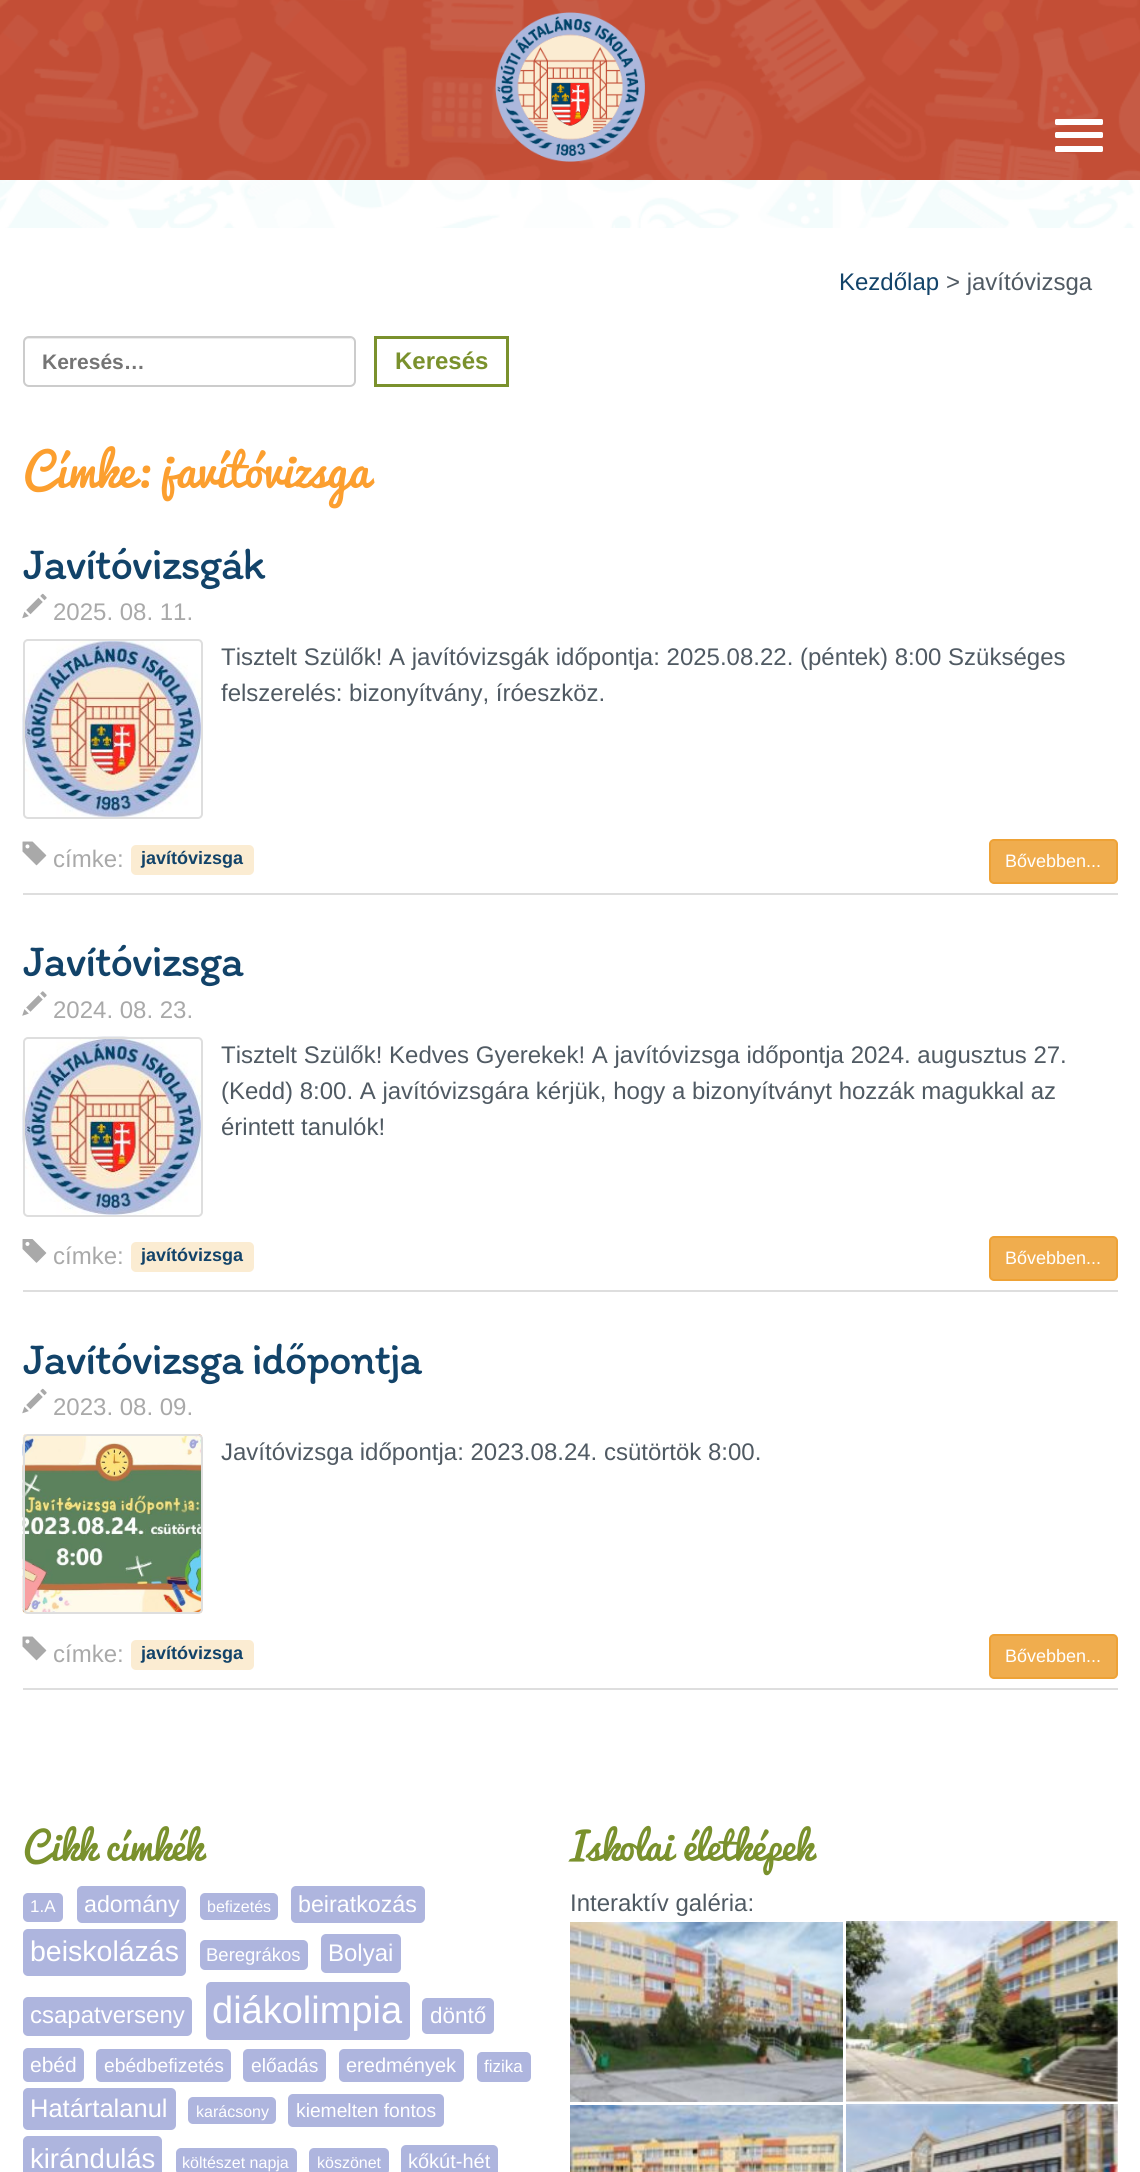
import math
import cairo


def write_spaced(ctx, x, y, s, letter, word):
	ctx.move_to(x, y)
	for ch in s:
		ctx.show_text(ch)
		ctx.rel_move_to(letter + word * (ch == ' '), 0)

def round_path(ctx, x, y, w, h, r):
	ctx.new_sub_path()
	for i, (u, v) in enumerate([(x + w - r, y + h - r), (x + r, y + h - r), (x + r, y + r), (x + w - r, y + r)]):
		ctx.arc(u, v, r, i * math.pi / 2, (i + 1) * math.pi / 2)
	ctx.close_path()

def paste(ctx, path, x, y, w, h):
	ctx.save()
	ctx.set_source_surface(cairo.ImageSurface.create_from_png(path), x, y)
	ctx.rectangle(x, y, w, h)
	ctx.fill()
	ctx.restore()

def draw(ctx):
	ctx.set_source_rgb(1, 1, 1)
	ctx.paint()
	paste(ctx, 'media/1.png', 0, 180, 1140, 48)
	paste(ctx, 'media/2.png', 0, 0, 1140, 180)
	paste(ctx, 'media/3.png', 495, 12, 150, 150)
	ctx.set_source_rgb(1, 1, 1)
	round_path(ctx, 1055, 119, 48, 6, 1.5)
	ctx.fill()
	round_path(ctx, 1055, 132, 48, 6, 1.5)
	ctx.fill()
	round_path(ctx, 1055, 146, 48, 6, 1.5)
	ctx.fill()
	ctx.select_font_face('Liberation Sans')
	ctx.set_font_size(24)
	ctx.set_source_rgb(0.071, 0.263, 0.412)
	ctx.move_to(839, 290)
	ctx.show_text('Kezdőlap')
	ctx.set_source_rgb(0.314, 0.353, 0.388)
	ctx.move_to(946, 290)
	ctx.show_text('> javítóvizsga')
	ctx.set_source_rgb(0.925, 0.925, 0.925)
	ctx.new_path()
	ctx.move_to(28, 339)
	ctx.line_to(350, 339)
	ctx.curve_to(352, 339, 354, 341, 354, 344)
	ctx.curve_to(354, 341, 352, 338, 349, 338)
	ctx.line_to(29, 338)
	ctx.curve_to(26, 338, 24, 341, 24, 344)
	ctx.curve_to(24, 341, 26, 339, 28, 339)
	ctx.close_path()
	ctx.fill()
	round_path(ctx, 24, 337, 331, 49, 5)
	ctx.set_source_rgb(0.8, 0.8, 0.8)
	ctx.stroke()
	ctx.select_font_face('Liberation Sans', cairo.FONT_SLANT_NORMAL, cairo.FONT_WEIGHT_BOLD)
	ctx.set_font_size(21)
	ctx.set_source_rgb(0.459, 0.459, 0.459)
	ctx.move_to(42, 369)
	ctx.show_text('Keresés…')
	ctx.rectangle(375.5, 337.5, 132, 48)
	ctx.set_source_rgb(0.478, 0.569, 0.176)
	ctx.set_line_width(3)
	ctx.stroke()
	ctx.set_font_size(24)
	ctx.move_to(395, 369)
	ctx.show_text('Keresés')
	ctx.select_font_face('Pacifico')
	ctx.set_font_size(45)
	ctx.set_source_rgb(0.988, 0.624, 0.184)
	ctx.move_to(23, 488)
	ctx.show_text('Címke: javítóvizsga')
	ctx.select_font_face('Itim')
	ctx.set_source_rgb(0.071, 0.263, 0.412)
	write_spaced(ctx, 23, 579, 'Javítóvizsgák', -1.5, 0)
	paste(ctx, 'media/4.png', 22, 593, 25, 26)
	ctx.select_font_face('Liberation Sans')
	ctx.set_font_size(24)
	ctx.set_source_rgb(0.663, 0.663, 0.663)
	ctx.move_to(53, 620)
	ctx.show_text('2025. 08. 11.')
	paste(ctx, 'media/5.png', 22, 639, 181, 180)
	round_path(ctx, 24, 640, 178, 178, 4)
	ctx.set_source_rgb(0.871, 0.871, 0.871)
	ctx.set_line_width(2)
	ctx.stroke()
	ctx.set_source_rgb(0.314, 0.353, 0.388)
	ctx.move_to(221, 665)
	ctx.show_text('Tisztelt Szülők! A javítóvizsgák időpontja: 2025.08.22. (péntek) 8:00 Szükséges')
	ctx.move_to(221, 701)
	ctx.show_text('felszerelés: bizonyítvány, íróeszköz.')
	ctx.set_source_rgb(0.871, 0.871, 0.871)
	ctx.rectangle(23, 893, 1095, 2)
	ctx.fill()
	paste(ctx, 'media/6.png', 22, 841, 25, 25)
	ctx.set_source_rgb(0.663, 0.663, 0.663)
	ctx.move_to(53, 867)
	ctx.show_text('címke:')
	ctx.set_source_rgb(0.984, 0.925, 0.824)
	round_path(ctx, 131, 845, 123, 30, 5)
	ctx.fill()
	ctx.select_font_face('Liberation Sans', cairo.FONT_SLANT_NORMAL, cairo.FONT_WEIGHT_BOLD)
	ctx.set_font_size(18)
	ctx.set_source_rgb(0.071, 0.263, 0.412)
	ctx.move_to(141, 864)
	ctx.show_text('javítóvizsga')
	ctx.set_source_rgb(0.941, 0.678, 0.306)
	round_path(ctx, 990, 840, 127, 43, 4)
	ctx.fill_preserve()
	ctx.set_source_rgb(0.933, 0.635, 0.212)
	ctx.stroke()
	ctx.select_font_face('Liberation Sans')
	ctx.set_source_rgb(1, 1, 1)
	ctx.move_to(1005, 867)
	ctx.show_text('Bővebben...')
	ctx.select_font_face('Itim')
	ctx.set_font_size(45)
	ctx.set_source_rgb(0.071, 0.263, 0.412)
	write_spaced(ctx, 23, 976, 'Javítóvizsga', -1.5, 0)
	paste(ctx, 'media/7.png', 22, 991, 25, 25)
	ctx.select_font_face('Liberation Sans')
	ctx.set_font_size(24)
	ctx.set_source_rgb(0.663, 0.663, 0.663)
	ctx.move_to(53, 1018)
	ctx.show_text('2024. 08. 23.')
	paste(ctx, 'media/8.png', 22, 1036, 181, 181)
	round_path(ctx, 24, 1038, 178, 178, 4)
	ctx.set_source_rgb(0.871, 0.871, 0.871)
	ctx.stroke()
	ctx.set_source_rgb(0.314, 0.353, 0.388)
	for x, y, s in [
		(221, 1063, 'Tisztelt Szülők! Kedves Gyerekek! A javítóvizsga időpontja 2024. augusztus 27.'),
		(221, 1099, '(Kedd) 8:00. A javítóvizsgára kérjük, hogy a bizonyítványt hozzák magukkal az'),
		(221, 1135, 'érintett tanulók!'),
	]:
		ctx.move_to(x, y)
		ctx.show_text(s)
	ctx.set_source_rgb(0.871, 0.871, 0.871)
	ctx.rectangle(23, 1290, 1095, 2)
	ctx.fill()
	paste(ctx, 'media/9.png', 22, 1239, 25, 24)
	ctx.set_source_rgb(0.663, 0.663, 0.663)
	ctx.move_to(53, 1264)
	ctx.show_text('címke:')
	ctx.set_source_rgb(0.984, 0.925, 0.824)
	round_path(ctx, 131, 1242, 123, 30, 5)
	ctx.fill()
	ctx.select_font_face('Liberation Sans', cairo.FONT_SLANT_NORMAL, cairo.FONT_WEIGHT_BOLD)
	ctx.set_font_size(18)
	ctx.set_source_rgb(0.071, 0.263, 0.412)
	ctx.move_to(141, 1261)
	ctx.show_text('javítóvizsga')
	ctx.set_source_rgb(0.941, 0.678, 0.306)
	round_path(ctx, 990, 1237, 127, 43, 4)
	ctx.fill_preserve()
	ctx.set_source_rgb(0.933, 0.635, 0.212)
	ctx.stroke()
	ctx.select_font_face('Liberation Sans')
	ctx.set_source_rgb(1, 1, 1)
	ctx.move_to(1005, 1264)
	ctx.show_text('Bővebben...')
	ctx.select_font_face('Itim')
	ctx.set_font_size(45)
	ctx.set_source_rgb(0.071, 0.263, 0.412)
	write_spaced(ctx, 23, 1374, 'Javítóvizsga időpontja', -1.5, 0)
	paste(ctx, 'media/4.png', 22, 1388, 25, 26)
	ctx.select_font_face('Liberation Sans')
	ctx.set_font_size(24)
	ctx.set_source_rgb(0.663, 0.663, 0.663)
	ctx.move_to(53, 1415)
	ctx.show_text('2023. 08. 09.')
	paste(ctx, 'media/10.png', 22, 1434, 181, 180)
	round_path(ctx, 24, 1435, 178, 178, 4)
	ctx.set_source_rgb(0.871, 0.871, 0.871)
	ctx.stroke()
	ctx.set_source_rgb(0.314, 0.353, 0.388)
	ctx.move_to(221, 1460)
	ctx.show_text('Javítóvizsga időpontja: 2023.08.24. csütörtök 8:00.')
	ctx.set_source_rgb(0.871, 0.871, 0.871)
	ctx.rectangle(23, 1688, 1095, 2)
	ctx.fill()
	paste(ctx, 'media/6.png', 22, 1636, 25, 25)
	ctx.set_source_rgb(0.663, 0.663, 0.663)
	ctx.move_to(53, 1662)
	ctx.show_text('címke:')
	ctx.set_source_rgb(0.984, 0.925, 0.824)
	round_path(ctx, 131, 1640, 123, 30, 5)
	ctx.fill()
	ctx.select_font_face('Liberation Sans', cairo.FONT_SLANT_NORMAL, cairo.FONT_WEIGHT_BOLD)
	ctx.set_font_size(18)
	ctx.set_source_rgb(0.071, 0.263, 0.412)
	ctx.move_to(141, 1659)
	ctx.show_text('javítóvizsga')
	ctx.set_source_rgb(0.941, 0.678, 0.306)
	round_path(ctx, 990, 1635, 127, 43, 4)
	ctx.fill_preserve()
	ctx.set_source_rgb(0.933, 0.635, 0.212)
	ctx.stroke()
	ctx.select_font_face('Liberation Sans')
	ctx.set_source_rgb(1, 1, 1)
	ctx.move_to(1005, 1662)
	ctx.show_text('Bővebben...')
	ctx.select_font_face('Pacifico')
	ctx.set_font_size(37.5)
	ctx.set_source_rgb(0.478, 0.569, 0.176)
	ctx.move_to(23, 1861)
	ctx.show_text('Cikk címkék')
	ctx.set_source_rgb(0.682, 0.71, 0.871)
	round_path(ctx, 23, 1893, 40, 29, 5)
	ctx.fill()
	ctx.select_font_face('Liberation Sans')
	ctx.set_font_size(17)
	ctx.set_source_rgb(1, 1, 1)
	ctx.move_to(30, 1912)
	ctx.show_text('1.A')
	ctx.set_source_rgb(0.682, 0.71, 0.871)
	round_path(ctx, 77, 1886, 109, 37, 5)
	ctx.fill()
	ctx.set_font_size(23.25)
	ctx.set_source_rgb(1, 1, 1)
	ctx.move_to(84, 1912)
	ctx.show_text('adomány')
	ctx.set_source_rgb(0.682, 0.71, 0.871)
	round_path(ctx, 200, 1893, 78, 27, 5)
	ctx.fill()
	ctx.set_font_size(16)
	ctx.set_source_rgb(1, 1, 1)
	ctx.move_to(207, 1912)
	ctx.show_text('befizetés')
	ctx.set_source_rgb(0.682, 0.71, 0.871)
	round_path(ctx, 291, 1886, 134, 37, 5)
	ctx.fill()
	ctx.set_font_size(23.25)
	ctx.set_source_rgb(1, 1, 1)
	ctx.move_to(298, 1912)
	ctx.show_text('beiratkozás')
	ctx.set_source_rgb(0.682, 0.71, 0.871)
	round_path(ctx, 23, 1929, 163, 47, 5)
	ctx.fill()
	ctx.set_font_size(28.5)
	ctx.set_source_rgb(1, 1, 1)
	ctx.move_to(30, 1961)
	ctx.show_text('beiskolázás')
	ctx.set_source_rgb(0.682, 0.71, 0.871)
	round_path(ctx, 200, 1940, 108, 30, 5)
	ctx.fill()
	ctx.set_font_size(18.5)
	ctx.set_source_rgb(1, 1, 1)
	ctx.move_to(206, 1961)
	ctx.show_text('Beregrákos')
	ctx.set_source_rgb(0.682, 0.71, 0.871)
	round_path(ctx, 321, 1934, 80, 39, 5)
	ctx.fill()
	ctx.set_font_size(24)
	ctx.set_source_rgb(1, 1, 1)
	ctx.move_to(328, 1961)
	ctx.show_text('Bolyai')
	ctx.set_source_rgb(0.682, 0.71, 0.871)
	round_path(ctx, 23, 1997, 169, 39, 5)
	ctx.fill()
	ctx.set_source_rgb(1, 1, 1)
	ctx.move_to(30, 2023)
	ctx.show_text('csapatverseny')
	ctx.set_source_rgb(0.682, 0.71, 0.871)
	round_path(ctx, 206, 1982, 204, 58, 5)
	ctx.fill()
	ctx.set_font_size(38)
	ctx.set_source_rgb(1, 1, 1)
	ctx.move_to(212, 2023)
	ctx.show_text('diákolimpia')
	ctx.set_source_rgb(0.682, 0.71, 0.871)
	round_path(ctx, 422, 1998, 72, 36, 5)
	ctx.fill()
	ctx.set_font_size(22.5)
	ctx.set_source_rgb(1, 1, 1)
	ctx.move_to(430, 2023)
	ctx.show_text('döntő')
	ctx.set_source_rgb(0.682, 0.71, 0.871)
	round_path(ctx, 23, 2048, 61, 34, 5)
	ctx.fill()
	ctx.set_font_size(21)
	ctx.set_source_rgb(1, 1, 1)
	ctx.move_to(30, 2072)
	ctx.show_text('ebéd')
	ctx.set_source_rgb(0.682, 0.71, 0.871)
	round_path(ctx, 96, 2049, 135, 33, 5)
	ctx.fill()
	ctx.set_font_size(19.25)
	ctx.set_source_rgb(1, 1, 1)
	ctx.move_to(104, 2072)
	ctx.show_text('ebédbefizetés')
	ctx.set_source_rgb(0.682, 0.71, 0.871)
	round_path(ctx, 243, 2049, 83, 33, 5)
	ctx.fill()
	ctx.set_source_rgb(1, 1, 1)
	ctx.move_to(251, 2072)
	ctx.show_text('előadás')
	ctx.set_source_rgb(0.682, 0.71, 0.871)
	round_path(ctx, 339, 2049, 125, 33, 5)
	ctx.fill()
	ctx.set_font_size(20)
	ctx.set_source_rgb(1, 1, 1)
	ctx.move_to(346, 2072)
	ctx.show_text('eredmények')
	ctx.set_source_rgb(0.682, 0.71, 0.871)
	round_path(ctx, 477, 2052, 54, 30, 5)
	ctx.fill()
	ctx.set_font_size(17)
	ctx.set_source_rgb(1, 1, 1)
	ctx.move_to(484, 2072)
	ctx.show_text('fizika')
	ctx.set_source_rgb(0.682, 0.71, 0.871)
	round_path(ctx, 23, 2088, 153, 42, 5)
	ctx.fill()
	ctx.set_font_size(25.5)
	ctx.set_source_rgb(1, 1, 1)
	ctx.move_to(30, 2117)
	ctx.show_text('Határtalanul')
	ctx.set_source_rgb(0.682, 0.71, 0.871)
	round_path(ctx, 188, 2097, 88, 27, 5)
	ctx.fill()
	ctx.set_font_size(16)
	ctx.set_source_rgb(1, 1, 1)
	ctx.move_to(196, 2117)
	ctx.show_text('karácsony')
	ctx.set_source_rgb(0.682, 0.71, 0.871)
	round_path(ctx, 288, 2094, 156, 33, 5)
	ctx.fill()
	ctx.set_font_size(19.25)
	ctx.set_source_rgb(1, 1, 1)
	ctx.move_to(296, 2117)
	ctx.show_text('kiemelten fontos')
	ctx.set_source_rgb(0.682, 0.71, 0.871)
	round_path(ctx, 23, 2136, 139, 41, 5)
	ctx.fill()
	ctx.set_font_size(27.5)
	ctx.set_source_rgb(1, 1, 1)
	ctx.move_to(30, 2168)
	ctx.show_text('kirándulás')
	ctx.set_source_rgb(0.682, 0.71, 0.871)
	round_path(ctx, 176, 2148, 121, 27, 5)
	ctx.fill()
	ctx.set_font_size(16)
	ctx.set_source_rgb(1, 1, 1)
	ctx.move_to(182, 2168)
	ctx.show_text('költészet napja')
	ctx.set_source_rgb(0.682, 0.71, 0.871)
	round_path(ctx, 309, 2148, 80, 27, 5)
	ctx.fill()
	ctx.set_source_rgb(1, 1, 1)
	ctx.move_to(317, 2168)
	ctx.show_text('köszönet')
	ctx.set_source_rgb(0.682, 0.71, 0.871)
	round_path(ctx, 401, 2145, 97, 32, 5)
	ctx.fill()
	ctx.set_font_size(20)
	ctx.set_source_rgb(1, 1, 1)
	ctx.move_to(408, 2168)
	ctx.show_text('kőkút-hét')
	ctx.select_font_face('Pacifico')
	ctx.set_font_size(37.5)
	ctx.set_source_rgb(0.478, 0.569, 0.176)
	ctx.move_to(570, 1861)
	ctx.show_text('Iskolai életképek')
	ctx.select_font_face('Liberation Sans')
	ctx.set_font_size(24)
	ctx.set_source_rgb(0.314, 0.353, 0.388)
	ctx.move_to(570, 1911)
	ctx.show_text('Interaktív galéria:')
	paste(ctx, 'media/11.png', 570, 1922, 273, 180)
	paste(ctx, 'media/12.png', 846, 1921, 272, 181)
	paste(ctx, 'media/13.png', 570, 2105, 273, 67)
	paste(ctx, 'media/14.png', 846, 2104, 272, 68)


surface = cairo.ImageSurface(cairo.FORMAT_RGB24, 1140, 2172)
ctx = cairo.Context(surface)
options = cairo.FontOptions()
options.set_hint_metrics(cairo.HINT_METRICS_OFF)
options.set_hint_style(cairo.HINT_STYLE_NONE)
ctx.set_font_options(options)
ctx.set_miter_limit(4)
draw(ctx)
surface.write_to_png('image.png')
